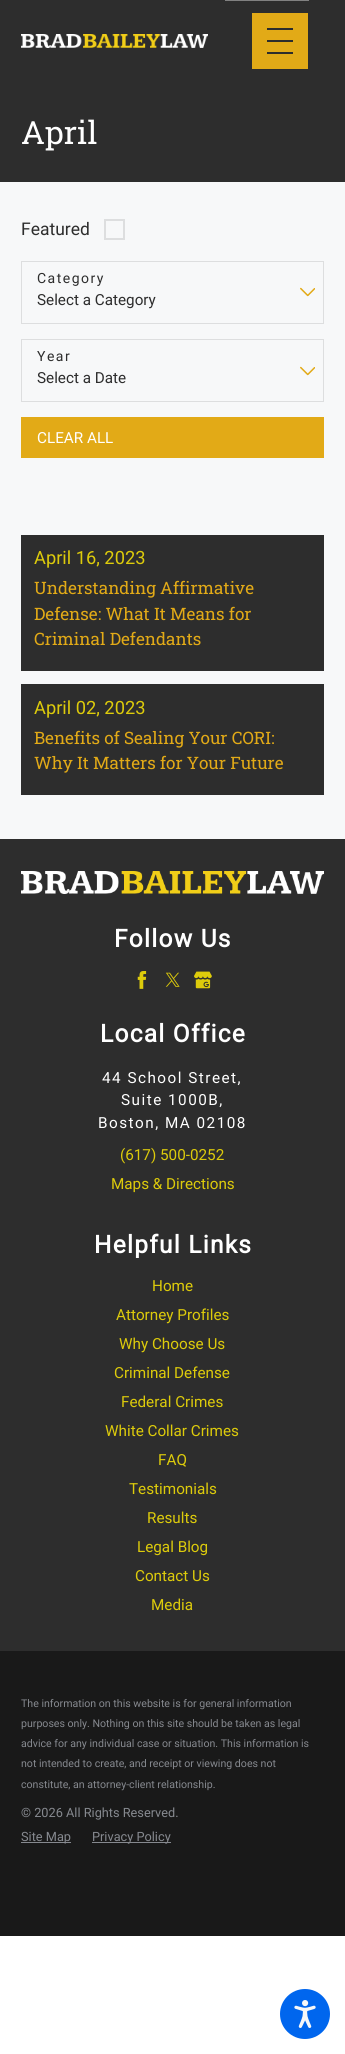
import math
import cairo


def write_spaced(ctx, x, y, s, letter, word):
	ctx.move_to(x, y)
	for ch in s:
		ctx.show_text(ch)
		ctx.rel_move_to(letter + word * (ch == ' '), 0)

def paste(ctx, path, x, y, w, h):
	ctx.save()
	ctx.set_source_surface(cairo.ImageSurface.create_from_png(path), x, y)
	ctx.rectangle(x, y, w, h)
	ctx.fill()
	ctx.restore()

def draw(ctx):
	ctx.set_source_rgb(1, 1, 1)
	ctx.paint()
	ctx.set_source_rgb(0.176, 0.176, 0.176)
	ctx.rectangle(0, 0, 345, 182)
	ctx.fill()
	paste(ctx, 'media/1.png', 21, 34, 187, 14)
	ctx.set_source_rgb(0.506, 0.506, 0.506)
	ctx.rectangle(225, 0, 84, 1)
	ctx.fill()
	ctx.set_source_rgb(0.886, 0.667, 0.09)
	ctx.new_path()
	ctx.move_to(252, 41)
	ctx.line_to(252, 13)
	ctx.line_to(308, 13)
	ctx.line_to(308, 69)
	ctx.line_to(252, 69)
	ctx.close_path()
	ctx.move_to(293, 53)
	ctx.line_to(293, 52)
	ctx.line_to(267, 52)
	ctx.line_to(267, 54)
	ctx.line_to(293, 54)
	ctx.close_path()
	ctx.move_to(293, 41)
	ctx.line_to(293, 40)
	ctx.line_to(267, 40)
	ctx.line_to(267, 42)
	ctx.line_to(293, 42)
	ctx.close_path()
	ctx.move_to(293, 29)
	ctx.line_to(293, 28)
	ctx.line_to(267, 28)
	ctx.line_to(267, 30)
	ctx.line_to(293, 30)
	ctx.close_path()
	ctx.fill()
	paste(ctx, 'media/2.png', 280, 1989, 50, 50)
	ctx.select_font_face('Roboto Slab')
	ctx.set_font_size(32)
	ctx.set_source_rgb(1, 1, 1)
	ctx.move_to(21, 144)
	ctx.show_text('April')
	ctx.set_source_rgb(0.965, 0.969, 0.973)
	ctx.rectangle(0, 182, 345, 657)
	ctx.fill()
	ctx.select_font_face('Roboto')
	ctx.set_font_size(17.5)
	ctx.set_source_rgb(0.176, 0.176, 0.176)
	ctx.move_to(21, 235)
	ctx.show_text('Featured')
	ctx.rectangle(105, 220, 19, 19)
	ctx.set_source_rgb(0.867, 0.871, 0.875)
	ctx.stroke()
	ctx.rectangle(21.5, 261.5, 302, 62)
	ctx.set_line_width(1)
	ctx.stroke()
	ctx.set_font_size(14)
	ctx.set_source_rgb(0.176, 0.176, 0.176)
	write_spaced(ctx, 37, 283, 'Category', 1.5, 0)
	paste(ctx, 'media/3.png', 300, 287, 15, 10)
	ctx.set_font_size(15.25)
	ctx.move_to(37, 305)
	ctx.show_text('Select a Category')
	ctx.rectangle(21.5, 339.5, 302, 62)
	ctx.set_source_rgb(0.867, 0.871, 0.875)
	ctx.stroke()
	ctx.set_font_size(14)
	ctx.set_source_rgb(0.176, 0.176, 0.176)
	write_spaced(ctx, 37, 361, 'Year', 1.5, 0)
	ctx.set_font_size(15.25)
	ctx.move_to(37, 383)
	ctx.show_text('Select a Date')
	paste(ctx, 'media/3.png', 300, 366, 15, 10)
	ctx.set_source_rgb(0.886, 0.667, 0.09)
	ctx.rectangle(21, 417, 303, 41)
	ctx.fill()
	ctx.set_source_rgb(1, 1, 1)
	ctx.move_to(37, 443)
	ctx.show_text('CLEAR ALL')
	ctx.set_source_rgb(0.176, 0.176, 0.176)
	ctx.rectangle(21, 535, 303, 136)
	ctx.fill()
	ctx.set_font_size(18.25)
	ctx.set_source_rgb(0.867, 0.796, 0.043)
	ctx.move_to(34, 564)
	ctx.show_text('April 16, 2023')
	ctx.select_font_face('Roboto Slab')
	ctx.set_font_size(17.1)
	ctx.set_source_rgb(0.886, 0.667, 0.09)
	for x, y, s in [
		(34, 594, 'Understanding Affirmative'),
		(34, 620, 'Defense: What It Means for'),
		(34, 645, 'Criminal Defendants'),
	]:
		ctx.move_to(x, y)
		ctx.show_text(s)
	ctx.set_source_rgb(0.176, 0.176, 0.176)
	ctx.rectangle(21, 684, 303, 111)
	ctx.fill()
	ctx.select_font_face('Roboto')
	ctx.set_font_size(18.25)
	ctx.set_source_rgb(0.867, 0.796, 0.043)
	ctx.move_to(34, 714)
	ctx.show_text('April 02, 2023')
	ctx.select_font_face('Roboto Slab')
	ctx.set_font_size(17.1)
	ctx.set_source_rgb(0.886, 0.667, 0.09)
	ctx.move_to(34, 744)
	ctx.show_text('Benefits of Sealing Your CORI:')
	ctx.move_to(34, 769)
	ctx.show_text('Why It Matters for Your Future')
	ctx.set_source_rgb(0.176, 0.176, 0.176)
	ctx.rectangle(0, 839, 345, 812)
	ctx.fill()
	paste(ctx, 'media/4.png', 21, 871, 303, 23)
	ctx.select_font_face('Roboto', cairo.FONT_SLANT_NORMAL, cairo.FONT_WEIGHT_BOLD)
	ctx.set_font_size(24.5)
	ctx.set_source_rgb(1, 1, 1)
	write_spaced(ctx, 114, 947, 'Follow Us', 1.25, 0)
	paste(ctx, 'media/5.png', 137, 971, 10, 18)
	paste(ctx, 'media/6.png', 165, 972, 15, 15)
	paste(ctx, 'media/7.png', 194, 971, 18, 18)
	write_spaced(ctx, 100, 1042, 'Local Office', 1.25, 0)
	ctx.select_font_face('Roboto')
	ctx.set_font_size(15.25)
	for x, y, s in [
		(102, 1083, '44 School Street,'),
		(121, 1105, 'Suite 1000B,'),
		(98, 1128, 'Boston, MA 02108'),
	]:
		write_spaced(ctx, x, y, s, 1.5, 0)
	ctx.set_source_rgb(0.867, 0.796, 0.043)
	ctx.move_to(120, 1160)
	ctx.show_text('(617) 500-0252')
	ctx.move_to(111, 1189)
	ctx.show_text('Maps & Directions')
	ctx.select_font_face('Roboto', cairo.FONT_SLANT_NORMAL, cairo.FONT_WEIGHT_BOLD)
	ctx.set_font_size(24.5)
	ctx.set_source_rgb(1, 1, 1)
	write_spaced(ctx, 94, 1253, 'Helpful Links', 1.25, 0)
	ctx.select_font_face('Roboto')
	ctx.set_font_size(15.25)
	ctx.set_source_rgb(0.867, 0.796, 0.043)
	for x, y, s in [
		(152, 1291, 'Home'),
		(116, 1320, 'Attorney Profiles'),
		(119, 1349, 'Why Choose Us'),
		(114, 1378, 'Criminal Defense'),
		(121, 1407, 'Federal Crimes'),
		(105, 1436, 'White Collar Crimes'),
		(158, 1465, 'FAQ'),
		(129, 1494, 'Testimonials'),
		(147, 1523, 'Results'),
		(137, 1552, 'Legal Blog'),
		(135, 1581, 'Contact Us'),
		(151, 1610, 'Media'),
	]:
		ctx.move_to(x, y)
		ctx.show_text(s)
	ctx.set_source_rgb(0.098, 0.098, 0.098)
	ctx.rectangle(0, 1651, 345, 285)
	ctx.fill()
	ctx.set_font_size(10.6)
	ctx.set_source_rgb(0.525, 0.537, 0.561)
	for x, y, s in [
		(21, 1707, 'The information on this website is for general information'),
		(21, 1727, 'purposes only. Nothing on this site should be taken as legal'),
		(21, 1747, 'advice for any individual case or situation. This information is'),
		(21, 1767, 'not intended to create, and receipt or viewing does not'),
		(21, 1788, 'constitute, an attorney-client relationship.'),
	]:
		ctx.move_to(x, y)
		ctx.show_text(s)
	ctx.set_font_size(12.75)
	ctx.move_to(21, 1817)
	ctx.show_text('© 2026 All Rights Reserved.')
	ctx.rectangle(21, 1842, 50, 1)
	ctx.fill()
	ctx.move_to(21, 1841)
	ctx.show_text('Site Map')
	ctx.rectangle(92, 1842, 79, 1)
	ctx.fill()
	ctx.move_to(92, 1841)
	ctx.show_text('Privacy Policy')


surface = cairo.ImageSurface(cairo.FORMAT_RGB24, 345, 2054)
ctx = cairo.Context(surface)
options = cairo.FontOptions()
options.set_hint_metrics(cairo.HINT_METRICS_OFF)
options.set_hint_style(cairo.HINT_STYLE_NONE)
ctx.set_font_options(options)
ctx.set_miter_limit(4)
draw(ctx)
surface.write_to_png('image.png')
